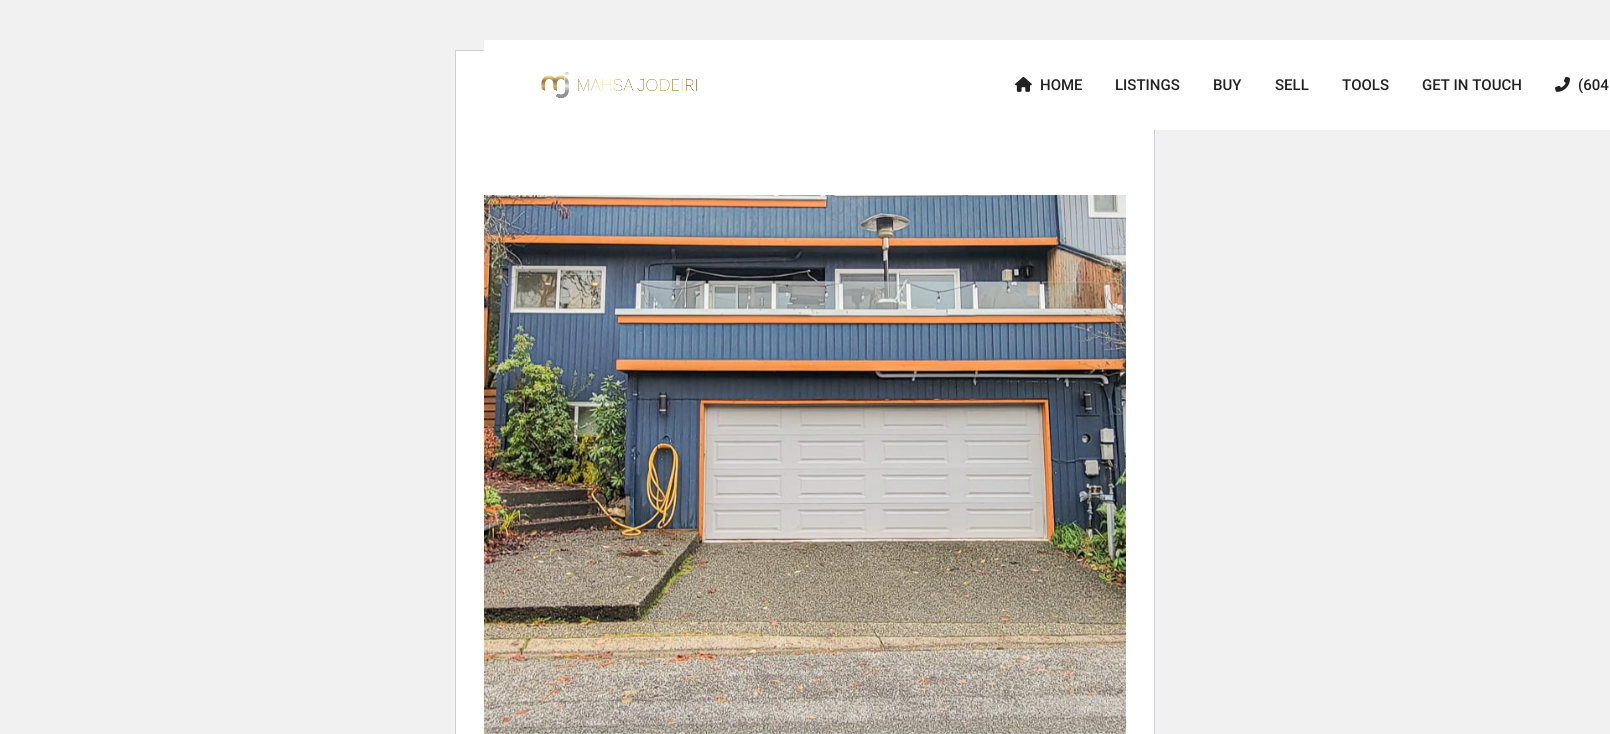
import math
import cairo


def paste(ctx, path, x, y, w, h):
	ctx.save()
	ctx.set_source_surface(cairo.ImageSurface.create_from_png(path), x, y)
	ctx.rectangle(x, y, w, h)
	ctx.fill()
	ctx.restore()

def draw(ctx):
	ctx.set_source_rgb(0.945, 0.945, 0.945)
	ctx.paint()
	ctx.set_source_rgb(1, 1, 1)
	ctx.rectangle(455.5, 50.5, 699, 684)
	ctx.fill_preserve()
	ctx.set_source_rgb(0.8, 0.816, 0.831)
	ctx.set_line_width(1)
	ctx.stroke()
	ctx.set_source_rgb(1, 1, 1)
	ctx.rectangle(484, 40, 1126, 90)
	ctx.fill()
	paste(ctx, 'media/1.png', 541, 71, 157, 28)
	paste(ctx, 'media/2.png', 1015, 76, 17, 16)
	ctx.select_font_face('Roboto Medium')
	ctx.set_font_size(15)
	ctx.set_source_rgb(0.133, 0.133, 0.133)
	for x, y, s in [
		(1040, 90, 'HOME'),
		(1115, 90, 'LISTINGS'),
		(1213, 90, 'BUY'),
		(1275, 90, 'SELL'),
		(1342, 90, 'TOOLS'),
		(1422, 90, 'GET IN TOUCH'),
	]:
		ctx.move_to(x, y)
		ctx.show_text(s)
	paste(ctx, 'media/3.png', 1555, 76, 15, 16)
	ctx.move_to(1578, 90)
	ctx.show_text('(604')
	paste(ctx, 'media/4.png', 484, 195, 642, 539)


surface = cairo.ImageSurface(cairo.FORMAT_RGB24, 1610, 734)
ctx = cairo.Context(surface)
options = cairo.FontOptions()
options.set_hint_metrics(cairo.HINT_METRICS_OFF)
options.set_hint_style(cairo.HINT_STYLE_NONE)
ctx.set_font_options(options)
ctx.set_miter_limit(4)
draw(ctx)
surface.write_to_png('image.png')
